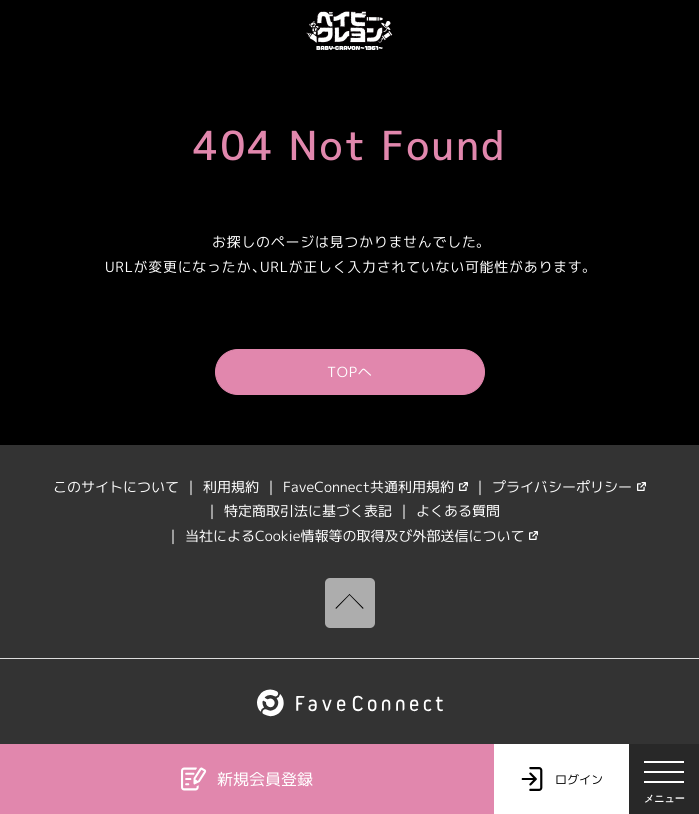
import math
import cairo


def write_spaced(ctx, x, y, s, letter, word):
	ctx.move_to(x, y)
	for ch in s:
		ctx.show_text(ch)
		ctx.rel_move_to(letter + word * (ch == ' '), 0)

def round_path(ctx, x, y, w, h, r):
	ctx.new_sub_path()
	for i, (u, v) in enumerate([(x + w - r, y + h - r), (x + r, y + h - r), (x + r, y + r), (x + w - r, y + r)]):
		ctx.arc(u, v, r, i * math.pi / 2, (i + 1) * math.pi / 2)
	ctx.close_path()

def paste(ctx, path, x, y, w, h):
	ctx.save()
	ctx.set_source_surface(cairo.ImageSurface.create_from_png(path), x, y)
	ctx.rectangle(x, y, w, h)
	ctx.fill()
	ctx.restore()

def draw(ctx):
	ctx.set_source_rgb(0, 0, 0)
	ctx.paint()
	ctx.select_font_face('M PLUS 1p Medium')
	ctx.set_font_size(40)
	ctx.set_source_rgb(0.882, 0.529, 0.678)
	write_spaced(ctx, 193, 160, '404 Not Found', 2, 0)
	ctx.select_font_face('M PLUS 1p')
	ctx.set_font_size(14)
	ctx.set_source_rgb(1, 1, 1)
	write_spaced(ctx, 212, 247, 'お探しのページは見つかりませんでした', 0.7, 0)
	ctx.select_font_face('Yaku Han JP')
	write_spaced(ctx, 476, 247, '。', 0.7, 0)
	ctx.select_font_face('M PLUS 1p')
	write_spaced(ctx, 105, 272, 'URLが変更になったか', 0.7, 0)
	ctx.select_font_face('Yaku Han JP')
	write_spaced(ctx, 252, 272, '、', 0.7, 0)
	ctx.select_font_face('M PLUS 1p')
	write_spaced(ctx, 260, 272, 'URLが正しく入力されていない可能性があります', 0.7, 0)
	ctx.select_font_face('Yaku Han JP')
	write_spaced(ctx, 582, 272, '。', 0.7, 0)
	ctx.set_source_rgb(0.882, 0.529, 0.678)
	round_path(ctx, 215.5, 349.5, 269, 45, 22.5)
	ctx.fill_preserve()
	ctx.set_line_width(1)
	ctx.stroke()
	ctx.select_font_face('M PLUS 1p')
	ctx.set_source_rgb(1, 1, 1)
	write_spaced(ctx, 327, 377, 'TOPへ', 0.7, 0)
	ctx.set_source_rgb(0.2, 0.2, 0.2)
	ctx.rectangle(0, 445, 699, 299)
	ctx.fill()
	ctx.set_source_rgb(1, 1, 1)
	for x, y, s in [
		(53, 492, 'このサイトについて'),
		(184, 492, '｜'),
		(203, 492, '利用規約'),
		(264, 492, '｜'),
		(283, 492, 'FaveConnect共通利用規約'),
	]:
		ctx.move_to(x, y)
		ctx.show_text(s)
	paste(ctx, 'media/1.png', 459, 482, 9, 9)
	ctx.move_to(473, 492)
	ctx.show_text('｜')
	ctx.move_to(492, 492)
	ctx.show_text('プライバシーポリシー')
	paste(ctx, 'media/1.png', 637, 482, 9, 9)
	for x, y, s in [
		(205, 516, '｜'),
		(224, 516, '特定商取引法に基づく表記'),
		(397, 516, '｜'),
		(416, 516, 'よくある質問'),
		(166, 541, '｜'),
		(185, 541, '当社によるCookie情報等の取得及び外部送信について'),
	]:
		ctx.move_to(x, y)
		ctx.show_text(s)
	paste(ctx, 'media/1.png', 529, 531, 9, 9)
	ctx.set_source_rgb(0.678, 0.678, 0.678)
	round_path(ctx, 325, 578, 50, 50, 5)
	ctx.fill()
	ctx.set_source_rgb(0, 0, 0)
	ctx.new_path()
	ctx.move_to(335.5, 608)
	ctx.line_to(349.5, 594)
	ctx.line_to(350, 594.5)
	ctx.line_to(336, 609)
	ctx.close_path()
	ctx.fill()
	ctx.new_path()
	ctx.move_to(349, 594.5)
	ctx.line_to(349.5, 594)
	ctx.line_to(363.5, 608)
	ctx.line_to(363, 609)
	ctx.close_path()
	ctx.fill()
	ctx.set_source_rgb(0.867, 0.867, 0.867)
	ctx.rectangle(0, 658, 699, 1)
	ctx.fill()
	paste(ctx, 'media/2.png', 257, 689, 186, 28)
	paste(ctx, 'media/3.png', 306, 10, 87, 40)
	ctx.set_source_rgb(0.882, 0.529, 0.678)
	ctx.rectangle(0, 744, 494, 70)
	ctx.fill()
	paste(ctx, 'media/4.png', 181, 767, 26, 24)
	ctx.set_font_size(16)
	ctx.set_source_rgb(1, 1, 1)
	ctx.move_to(217, 785)
	ctx.show_text('新規会員登録')
	ctx.rectangle(494, 744, 135, 70)
	ctx.fill()
	paste(ctx, 'media/5.png', 521, 767, 22, 24)
	ctx.set_font_size(12)
	ctx.set_source_rgb(0, 0, 0)
	ctx.move_to(555, 784)
	ctx.show_text('ログイン')
	ctx.set_source_rgb(0.157, 0.157, 0.157)
	ctx.rectangle(629, 744, 70, 70)
	ctx.fill()
	ctx.set_source_rgb(1, 1, 1)
	ctx.rectangle(644, 761, 40, 2)
	ctx.rectangle(644, 771, 40, 2)
	ctx.rectangle(644, 781, 40, 2)
	ctx.fill()
	ctx.select_font_face('WenQuanYi Zen Hei', cairo.FONT_SLANT_NORMAL, cairo.FONT_WEIGHT_BOLD)
	ctx.set_font_size(10)
	ctx.move_to(644, 802)
	ctx.show_text('メニュー')


surface = cairo.ImageSurface(cairo.FORMAT_RGB24, 699, 814)
ctx = cairo.Context(surface)
options = cairo.FontOptions()
options.set_hint_metrics(cairo.HINT_METRICS_OFF)
options.set_hint_style(cairo.HINT_STYLE_NONE)
ctx.set_font_options(options)
ctx.set_miter_limit(4)
draw(ctx)
surface.write_to_png('image.png')
